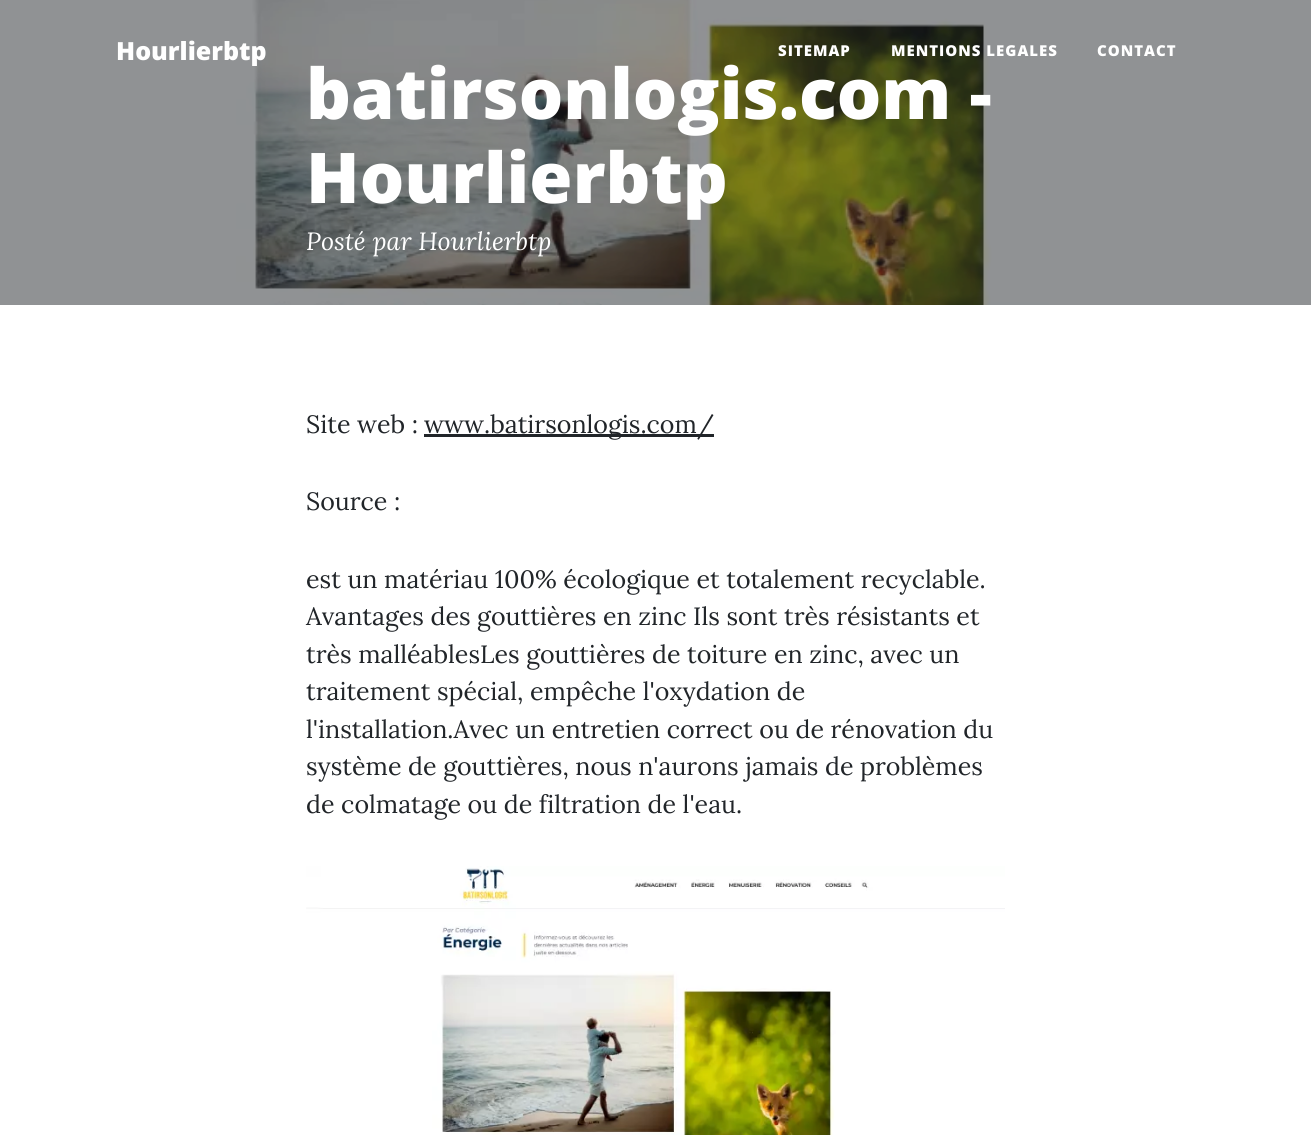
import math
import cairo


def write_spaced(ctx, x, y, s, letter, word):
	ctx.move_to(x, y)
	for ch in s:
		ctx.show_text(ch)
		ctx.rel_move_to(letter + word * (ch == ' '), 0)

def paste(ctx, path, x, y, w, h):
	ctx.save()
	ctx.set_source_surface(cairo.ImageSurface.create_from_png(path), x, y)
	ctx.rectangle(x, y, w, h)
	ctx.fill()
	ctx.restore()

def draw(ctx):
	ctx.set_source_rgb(1, 1, 1)
	ctx.paint()
	paste(ctx, 'media/1.png', 0, 0, 1311, 305)
	ctx.select_font_face('Open Sans ExtraBold')
	ctx.set_font_size(25)
	ctx.set_source_rgb(1, 1, 1)
	ctx.move_to(116, 60)
	ctx.show_text('Hourlierbtp')
	ctx.set_font_size(15)
	for x, y, s in [
		(778, 56, 'SITEMAP'),
		(891, 56, 'MENTIONS LEGALES'),
		(1097, 56, 'CONTACT'),
	]:
		write_spaced(ctx, x, y, s, 1, 0)
	ctx.set_font_size(70)
	ctx.move_to(306, 119)
	ctx.show_text('batirsonlogis.com -')
	ctx.move_to(306, 203)
	ctx.show_text('Hourlierbtp')
	ctx.select_font_face('Lora', cairo.FONT_SLANT_ITALIC)
	ctx.set_font_size(25)
	ctx.move_to(306, 250)
	ctx.show_text('Posté par Hourlierbtp')
	ctx.select_font_face('Lora')
	ctx.set_source_rgb(0.129, 0.145, 0.161)
	ctx.move_to(306, 433)
	ctx.show_text('Site web :')
	ctx.rectangle(424, 434, 290, 3)
	ctx.fill()
	for x, y, s in [
		(424, 433, 'www.batirsonlogis.com/'),
		(306, 510, 'Source :'),
		(306, 588, 'est un matériau 100% écologique et totalement recyclable.'),
		(306, 625, 'Avantages des gouttières en zinc Ils sont très résistants et'),
		(306, 663, 'très malléablesLes gouttières de toiture en zinc, avec un'),
		(306, 700, 'traitement spécial, empêche l\'oxydation de'),
		(306, 738, 'l\'installation.Avec un entretien correct ou de rénovation du'),
		(306, 775, 'système de gouttières, nous n\'aurons jamais de problèmes'),
		(306, 813, 'de colmatage ou de filtration de l\'eau.'),
	]:
		ctx.move_to(x, y)
		ctx.show_text(s)
	paste(ctx, 'media/2.png', 306, 866, 699, 269)


surface = cairo.ImageSurface(cairo.FORMAT_RGB24, 1311, 1135)
ctx = cairo.Context(surface)
options = cairo.FontOptions()
options.set_hint_metrics(cairo.HINT_METRICS_OFF)
options.set_hint_style(cairo.HINT_STYLE_NONE)
ctx.set_font_options(options)
ctx.set_miter_limit(4)
draw(ctx)
surface.write_to_png('image.png')
